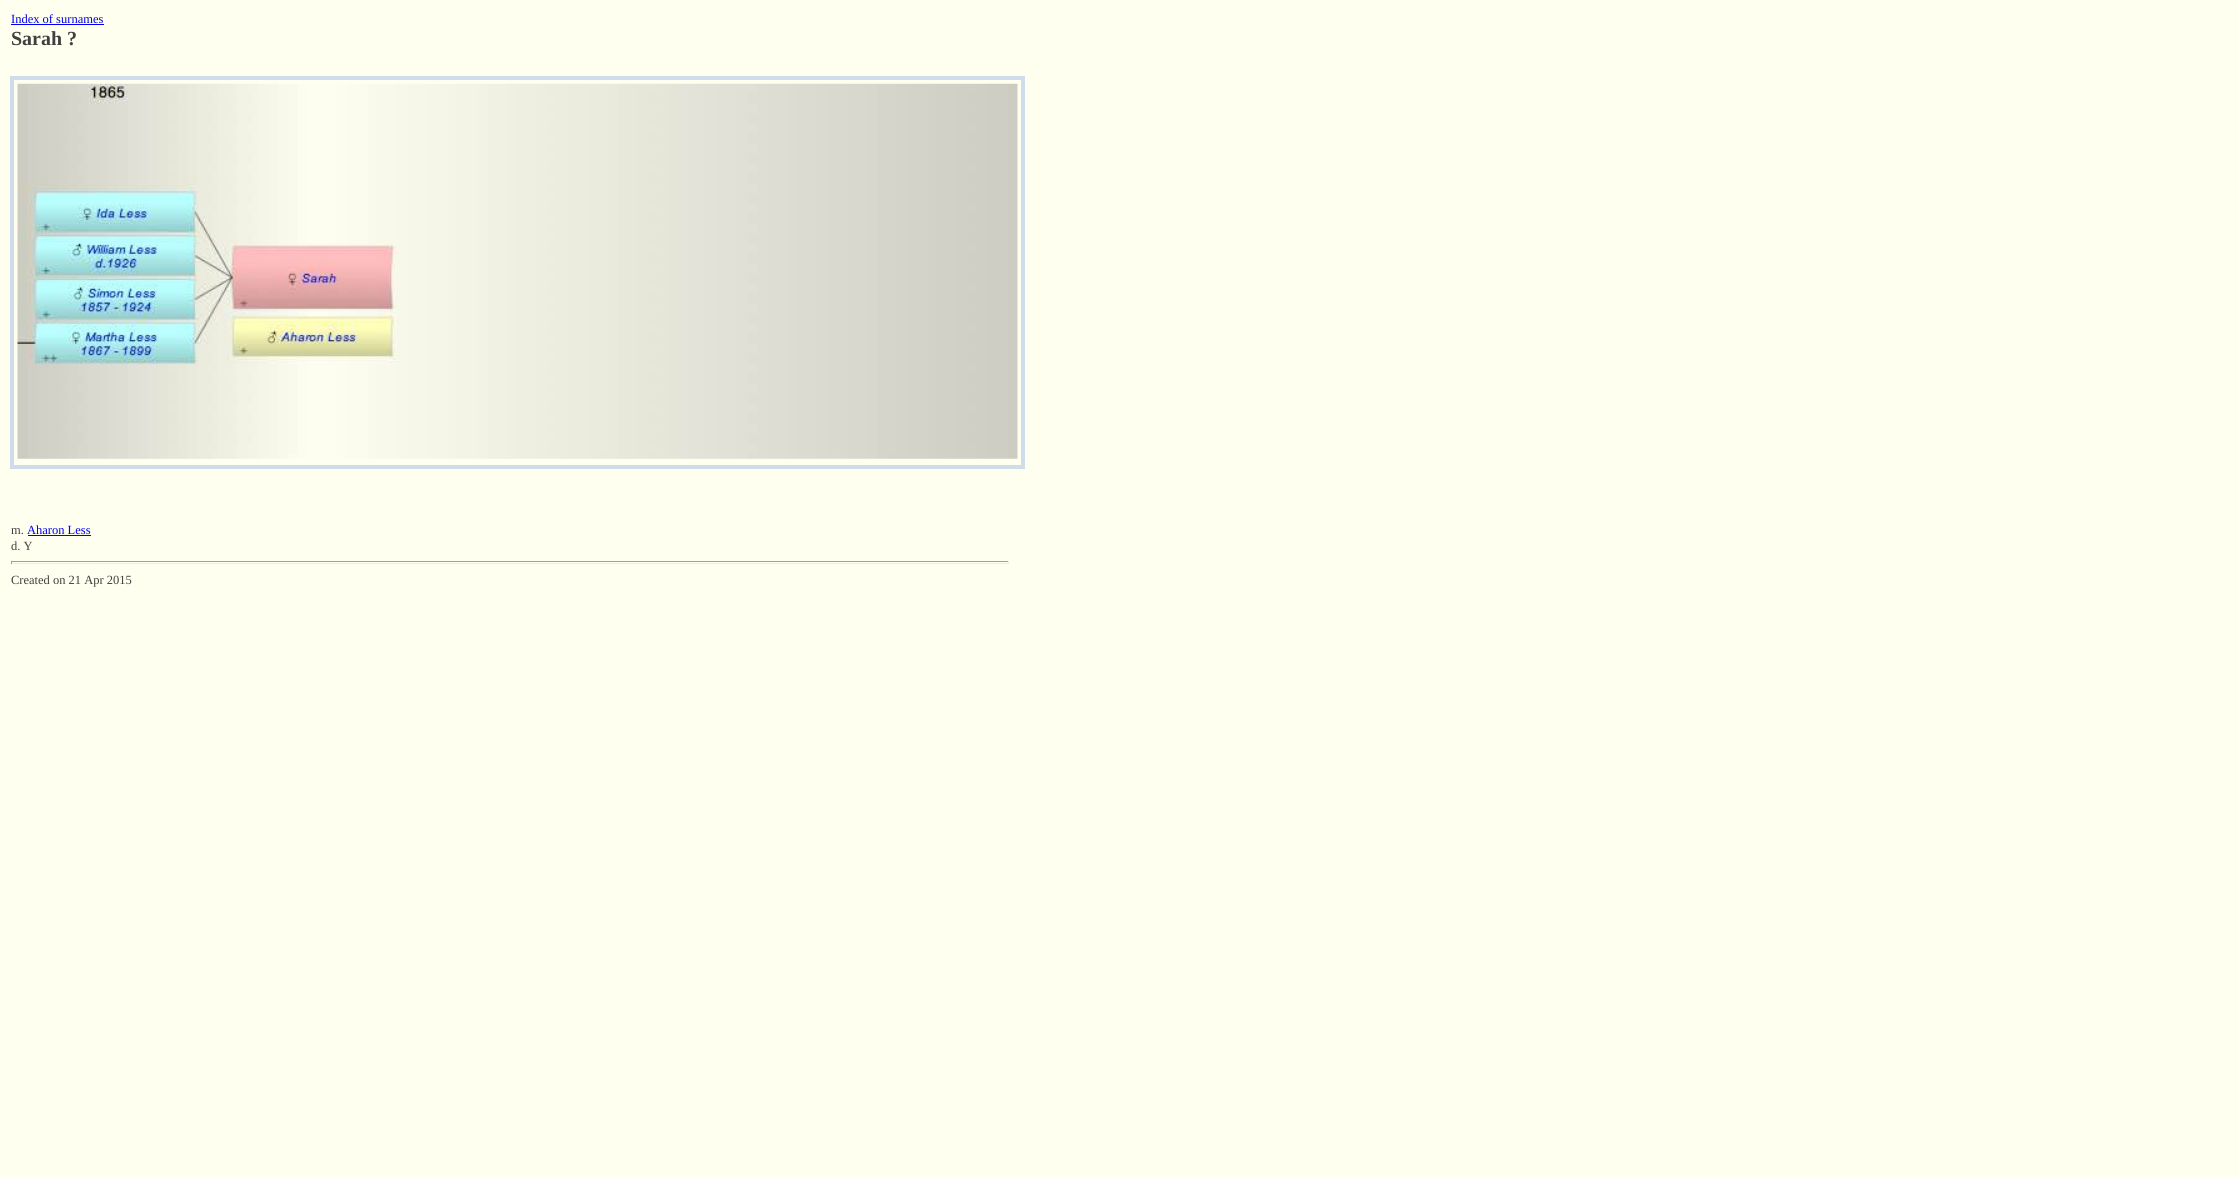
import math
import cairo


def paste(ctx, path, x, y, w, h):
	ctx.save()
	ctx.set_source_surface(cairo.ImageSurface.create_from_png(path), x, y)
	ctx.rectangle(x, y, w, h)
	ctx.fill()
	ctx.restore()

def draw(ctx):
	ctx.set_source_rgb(1, 1, 0.941)
	ctx.paint()
	ctx.select_font_face('Liberation Serif')
	ctx.set_font_size(12.5)
	ctx.set_source_rgb(0, 0, 0.933)
	ctx.move_to(11, 23)
	ctx.show_text('Index of surnames')
	ctx.rectangle(11, 24, 93, 1)
	ctx.fill()
	ctx.select_font_face('Liberation Serif', cairo.FONT_SLANT_NORMAL, cairo.FONT_WEIGHT_BOLD)
	ctx.set_font_size(20)
	ctx.set_source_rgb(0.251, 0.251, 0.251)
	ctx.move_to(11, 45)
	ctx.show_text('Sarah ?')
	ctx.set_source_rgb(0.808, 0.863, 0.918)
	ctx.rectangle(10, 76, 1015, 4)
	ctx.rectangle(1021, 76, 4, 393)
	ctx.rectangle(10, 465, 1015, 4)
	ctx.rectangle(10, 76, 4, 393)
	ctx.fill()
	paste(ctx, 'media/1.png', 17, 83, 1001, 376)
	ctx.select_font_face('Liberation Serif')
	ctx.set_font_size(12.5)
	ctx.set_source_rgb(0.251, 0.251, 0.251)
	ctx.move_to(11, 534)
	ctx.show_text('m.')
	ctx.set_source_rgb(0, 0, 0.933)
	ctx.move_to(27, 534)
	ctx.show_text('Aharon Less')
	ctx.rectangle(28, 535, 63, 1)
	ctx.fill()
	ctx.set_source_rgb(0.251, 0.251, 0.251)
	ctx.move_to(11, 550)
	ctx.show_text('d. Y')
	ctx.set_source_rgb(0.624, 0.624, 0.624)
	ctx.rectangle(11, 561, 998, 1)
	ctx.fill()
	ctx.set_source_rgb(0.933, 0.933, 0.933)
	ctx.rectangle(1008, 561, 1, 3)
	ctx.rectangle(11, 563, 998, 1)
	ctx.fill()
	ctx.set_source_rgb(0.624, 0.624, 0.624)
	ctx.rectangle(11, 561, 1, 3)
	ctx.fill()
	ctx.set_source_rgb(0.251, 0.251, 0.251)
	ctx.move_to(11, 584)
	ctx.show_text('Created on 21 Apr 2015')


surface = cairo.ImageSurface(cairo.FORMAT_RGB24, 2239, 1177)
ctx = cairo.Context(surface)
options = cairo.FontOptions()
options.set_hint_metrics(cairo.HINT_METRICS_OFF)
options.set_hint_style(cairo.HINT_STYLE_NONE)
ctx.set_font_options(options)
ctx.set_miter_limit(4)
draw(ctx)
surface.write_to_png('image.png')
